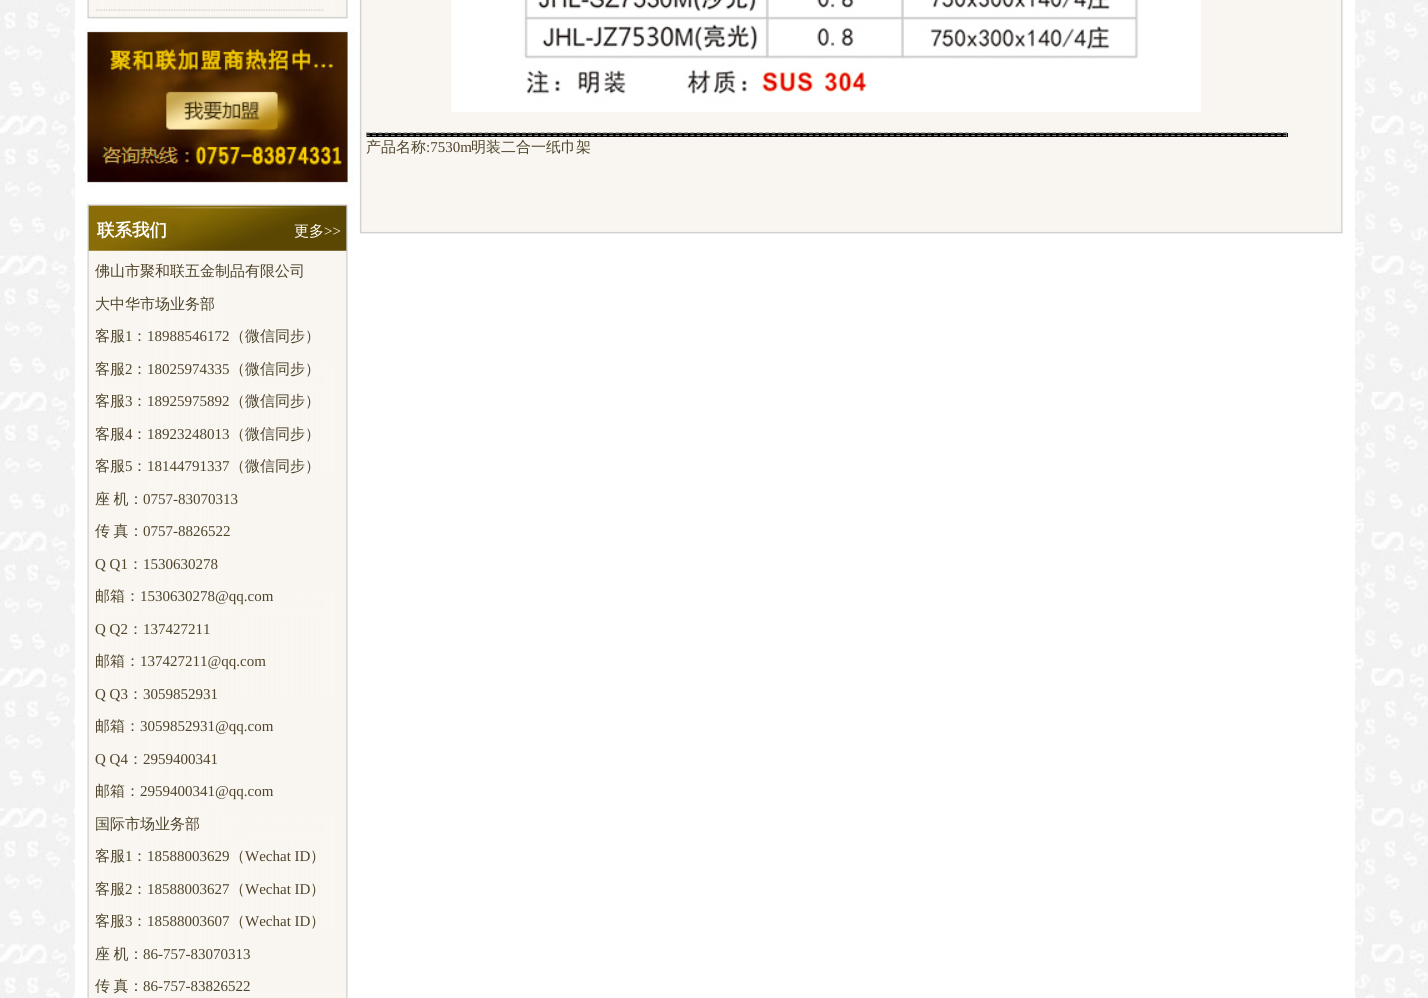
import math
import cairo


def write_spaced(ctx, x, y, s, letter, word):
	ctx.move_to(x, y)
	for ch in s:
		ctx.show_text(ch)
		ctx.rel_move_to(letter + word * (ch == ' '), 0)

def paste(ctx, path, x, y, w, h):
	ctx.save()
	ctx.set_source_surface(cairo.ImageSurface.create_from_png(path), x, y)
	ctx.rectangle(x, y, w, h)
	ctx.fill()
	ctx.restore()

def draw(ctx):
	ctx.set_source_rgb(1, 1, 1)
	ctx.paint()
	paste(ctx, 'media/1.png', 0, 0, 1428, 998)
	ctx.set_source_rgb(1, 1, 1)
	ctx.rectangle(75, 0, 1280, 998)
	ctx.fill()
	paste(ctx, 'media/2.png', 359, 0, 984, 227)
	paste(ctx, 'media/3.png', 451, 0, 750, 112)
	ctx.set_source_rgb(0, 0, 0)
	ctx.rectangle(366, 133, 922, 4)
	ctx.fill()
	ctx.new_path()
	ctx.move_to(366, 133)
	ctx.line_to(1287.5, 133)
	ctx.set_source_rgb(0.502, 0.502, 0.502)
	ctx.set_line_width(1.2)
	ctx.set_dash([3.75, 2.49])
	ctx.stroke()
	ctx.rectangle(1286, 133, 1, 4)
	ctx.fill()
	ctx.new_path()
	ctx.move_to(366, 135.5)
	ctx.line_to(1287.5, 135.5)
	ctx.stroke()
	ctx.rectangle(366, 133, 1, 4)
	ctx.fill()
	ctx.select_font_face('WenQuanYi Zen Hei Medium')
	ctx.set_font_size(15)
	ctx.set_source_rgb(0.31, 0.267, 0.169)
	ctx.move_to(366, 152)
	ctx.show_text('产品名称')
	ctx.select_font_face('Liberation Serif')
	ctx.move_to(426, 152)
	ctx.show_text(':7530m')
	ctx.select_font_face('WenQuanYi Zen Hei Medium')
	ctx.move_to(471, 152)
	ctx.show_text('明装二合一纸巾架')
	paste(ctx, 'media/4.png', 359, 227, 984, 7)
	paste(ctx, 'media/5.png', 87, 0, 261, 14)
	paste(ctx, 'media/6.png', 96, 7, 228, 4)
	paste(ctx, 'media/7.png', 87, 13, 261, 6)
	paste(ctx, 'media/8.png', 85, 27, 269, 160)
	paste(ctx, 'media/9.png', 85, 199, 269, 53)
	ctx.select_font_face('WenQuanYi Zen Hei', cairo.FONT_SLANT_NORMAL, cairo.FONT_WEIGHT_BOLD)
	ctx.set_font_size(17.5)
	ctx.set_source_rgb(1, 1, 1)
	ctx.move_to(97, 236)
	ctx.show_text('联系我们')
	ctx.select_font_face('WenQuanYi Zen Hei Medium')
	ctx.set_font_size(15)
	ctx.move_to(294, 236)
	ctx.show_text('更多')
	ctx.select_font_face('Liberation Serif')
	ctx.move_to(324, 236)
	ctx.show_text('>>')
	paste(ctx, 'media/10.png', 87, 252, 261, 746)
	ctx.select_font_face('WenQuanYi Zen Hei Medium')
	ctx.set_source_rgb(0.31, 0.267, 0.169)
	for x, y, s in [
		(95, 276, '佛山市聚和联五金制品有限公司'),
		(95, 309, '大中华市场业务部'),
		(95, 341, '客服'),
	]:
		ctx.move_to(x, y)
		ctx.show_text(s)
	ctx.select_font_face('Liberation Serif')
	ctx.move_to(125, 341)
	ctx.show_text('1')
	ctx.select_font_face('WenQuanYi Zen Hei Medium')
	ctx.move_to(132, 341)
	ctx.show_text('：')
	ctx.select_font_face('Liberation Serif')
	ctx.move_to(147, 341)
	ctx.show_text('18988546172')
	ctx.select_font_face('WenQuanYi Zen Hei Medium')
	ctx.move_to(230, 341)
	ctx.show_text('（微信同步）')
	ctx.move_to(95, 374)
	ctx.show_text('客服')
	ctx.select_font_face('Liberation Serif')
	ctx.move_to(125, 374)
	ctx.show_text('2')
	ctx.select_font_face('WenQuanYi Zen Hei Medium')
	ctx.move_to(132, 374)
	ctx.show_text('：')
	ctx.select_font_face('Liberation Serif')
	ctx.move_to(147, 374)
	ctx.show_text('18025974335')
	ctx.select_font_face('WenQuanYi Zen Hei Medium')
	ctx.move_to(230, 374)
	ctx.show_text('（微信同步）')
	ctx.move_to(95, 406)
	ctx.show_text('客服')
	ctx.select_font_face('Liberation Serif')
	ctx.move_to(125, 406)
	ctx.show_text('3')
	ctx.select_font_face('WenQuanYi Zen Hei Medium')
	ctx.move_to(132, 406)
	ctx.show_text('：')
	ctx.select_font_face('Liberation Serif')
	ctx.move_to(147, 406)
	ctx.show_text('18925975892')
	ctx.select_font_face('WenQuanYi Zen Hei Medium')
	ctx.move_to(230, 406)
	ctx.show_text('（微信同步）')
	ctx.move_to(95, 439)
	ctx.show_text('客服')
	ctx.select_font_face('Liberation Serif')
	ctx.move_to(125, 439)
	ctx.show_text('4')
	ctx.select_font_face('WenQuanYi Zen Hei Medium')
	ctx.move_to(132, 439)
	ctx.show_text('：')
	ctx.select_font_face('Liberation Serif')
	ctx.move_to(147, 439)
	ctx.show_text('18923248013')
	ctx.select_font_face('WenQuanYi Zen Hei Medium')
	ctx.move_to(230, 439)
	ctx.show_text('（微信同步）')
	ctx.move_to(95, 471)
	ctx.show_text('客服')
	ctx.select_font_face('Liberation Serif')
	ctx.move_to(125, 471)
	ctx.show_text('5')
	ctx.select_font_face('WenQuanYi Zen Hei Medium')
	ctx.move_to(132, 471)
	ctx.show_text('：')
	ctx.select_font_face('Liberation Serif')
	ctx.move_to(147, 471)
	ctx.show_text('18144791337')
	ctx.select_font_face('WenQuanYi Zen Hei Medium')
	ctx.move_to(230, 471)
	ctx.show_text('（微信同步）')
	write_spaced(ctx, 95, 504, '座 机：', 0, -1)
	ctx.select_font_face('Liberation Serif')
	ctx.move_to(143, 504)
	ctx.show_text('0757-83070313')
	ctx.select_font_face('WenQuanYi Zen Hei Medium')
	write_spaced(ctx, 95, 536, '传 真：', 0, -1)
	ctx.select_font_face('Liberation Serif')
	ctx.move_to(143, 536)
	ctx.show_text('0757-8826522')
	ctx.move_to(95, 569)
	ctx.show_text('Q Q1')
	ctx.select_font_face('WenQuanYi Zen Hei Medium')
	ctx.move_to(128, 569)
	ctx.show_text('：')
	ctx.select_font_face('Liberation Serif')
	ctx.move_to(143, 569)
	ctx.show_text('1530630278')
	ctx.select_font_face('WenQuanYi Zen Hei Medium')
	ctx.move_to(95, 601)
	ctx.show_text('邮箱：')
	ctx.select_font_face('Liberation Serif')
	ctx.move_to(140, 601)
	ctx.show_text('1530630278@qq.com')
	ctx.move_to(95, 634)
	ctx.show_text('Q Q2')
	ctx.select_font_face('WenQuanYi Zen Hei Medium')
	ctx.move_to(128, 634)
	ctx.show_text('：')
	ctx.select_font_face('Liberation Serif')
	ctx.move_to(143, 634)
	ctx.show_text('137427211')
	ctx.select_font_face('WenQuanYi Zen Hei Medium')
	ctx.move_to(95, 666)
	ctx.show_text('邮箱：')
	ctx.select_font_face('Liberation Serif')
	ctx.move_to(140, 666)
	ctx.show_text('137427211@qq.com')
	ctx.move_to(95, 699)
	ctx.show_text('Q Q3')
	ctx.select_font_face('WenQuanYi Zen Hei Medium')
	ctx.move_to(128, 699)
	ctx.show_text('：')
	ctx.select_font_face('Liberation Serif')
	ctx.move_to(143, 699)
	ctx.show_text('3059852931')
	ctx.select_font_face('WenQuanYi Zen Hei Medium')
	ctx.move_to(95, 731)
	ctx.show_text('邮箱：')
	ctx.select_font_face('Liberation Serif')
	ctx.move_to(140, 731)
	ctx.show_text('3059852931@qq.com')
	ctx.move_to(95, 764)
	ctx.show_text('Q Q4')
	ctx.select_font_face('WenQuanYi Zen Hei Medium')
	ctx.move_to(128, 764)
	ctx.show_text('：')
	ctx.select_font_face('Liberation Serif')
	ctx.move_to(143, 764)
	ctx.show_text('2959400341')
	ctx.select_font_face('WenQuanYi Zen Hei Medium')
	ctx.move_to(95, 796)
	ctx.show_text('邮箱：')
	ctx.select_font_face('Liberation Serif')
	ctx.move_to(140, 796)
	ctx.show_text('2959400341@qq.com')
	ctx.select_font_face('WenQuanYi Zen Hei Medium')
	ctx.move_to(95, 829)
	ctx.show_text('国际市场业务部')
	ctx.move_to(95, 861)
	ctx.show_text('客服')
	ctx.select_font_face('Liberation Serif')
	ctx.move_to(125, 861)
	ctx.show_text('1')
	ctx.select_font_face('WenQuanYi Zen Hei Medium')
	ctx.move_to(132, 861)
	ctx.show_text('：')
	ctx.select_font_face('Liberation Serif')
	ctx.move_to(147, 861)
	ctx.show_text('18588003629')
	ctx.select_font_face('WenQuanYi Zen Hei Medium')
	ctx.move_to(230, 861)
	ctx.show_text('（')
	ctx.select_font_face('Liberation Serif')
	ctx.move_to(245, 861)
	ctx.show_text('Wechat ID')
	ctx.select_font_face('WenQuanYi Zen Hei Medium')
	ctx.move_to(310, 861)
	ctx.show_text('）')
	ctx.move_to(95, 894)
	ctx.show_text('客服')
	ctx.select_font_face('Liberation Serif')
	ctx.move_to(125, 894)
	ctx.show_text('2')
	ctx.select_font_face('WenQuanYi Zen Hei Medium')
	ctx.move_to(132, 894)
	ctx.show_text('：')
	ctx.select_font_face('Liberation Serif')
	ctx.move_to(147, 894)
	ctx.show_text('18588003627')
	ctx.select_font_face('WenQuanYi Zen Hei Medium')
	ctx.move_to(230, 894)
	ctx.show_text('（')
	ctx.select_font_face('Liberation Serif')
	ctx.move_to(245, 894)
	ctx.show_text('Wechat ID')
	ctx.select_font_face('WenQuanYi Zen Hei Medium')
	ctx.move_to(310, 894)
	ctx.show_text('）')
	ctx.move_to(95, 926)
	ctx.show_text('客服')
	ctx.select_font_face('Liberation Serif')
	ctx.move_to(125, 926)
	ctx.show_text('3')
	ctx.select_font_face('WenQuanYi Zen Hei Medium')
	ctx.move_to(132, 926)
	ctx.show_text('：')
	ctx.select_font_face('Liberation Serif')
	ctx.move_to(147, 926)
	ctx.show_text('18588003607')
	ctx.select_font_face('WenQuanYi Zen Hei Medium')
	ctx.move_to(230, 926)
	ctx.show_text('（')
	ctx.select_font_face('Liberation Serif')
	ctx.move_to(245, 926)
	ctx.show_text('Wechat ID')
	ctx.select_font_face('WenQuanYi Zen Hei Medium')
	ctx.move_to(310, 926)
	ctx.show_text('）')
	write_spaced(ctx, 95, 959, '座 机：', 0, -1)
	ctx.select_font_face('Liberation Serif')
	ctx.move_to(143, 959)
	ctx.show_text('86-757-83070313')
	ctx.select_font_face('WenQuanYi Zen Hei Medium')
	write_spaced(ctx, 95, 991, '传 真：', 0, -1)
	ctx.select_font_face('Liberation Serif')
	ctx.move_to(143, 991)
	ctx.show_text('86-757-83826522')


surface = cairo.ImageSurface(cairo.FORMAT_RGB24, 1428, 998)
ctx = cairo.Context(surface)
options = cairo.FontOptions()
options.set_hint_metrics(cairo.HINT_METRICS_OFF)
options.set_hint_style(cairo.HINT_STYLE_NONE)
ctx.set_font_options(options)
ctx.set_miter_limit(4)
draw(ctx)
surface.write_to_png('image.png')
